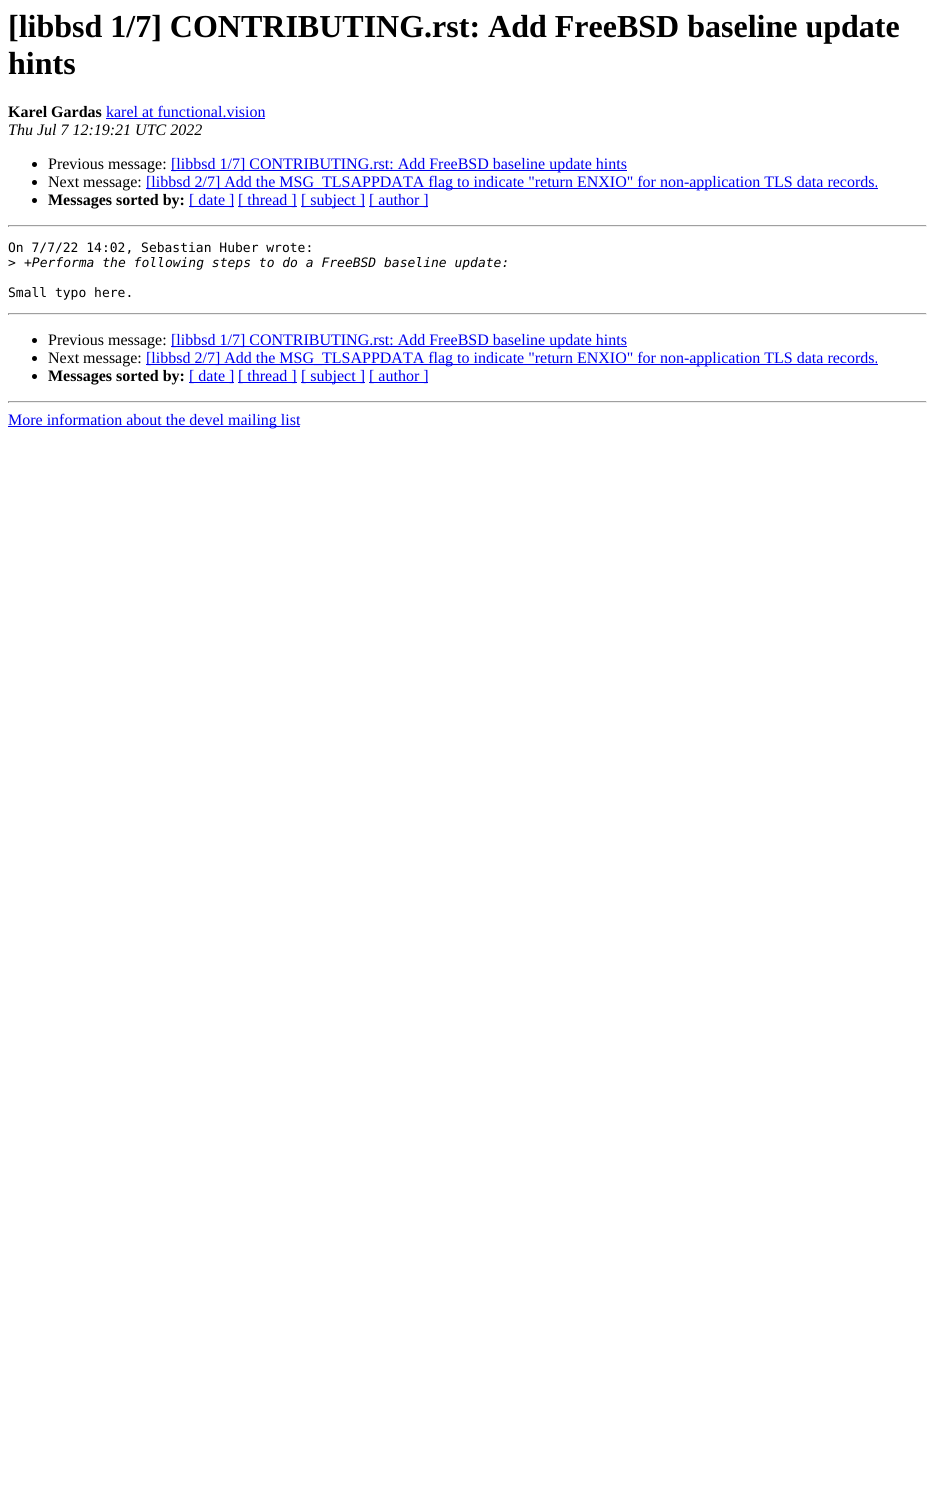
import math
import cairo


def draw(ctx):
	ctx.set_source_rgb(1, 1, 1)
	ctx.paint()
	ctx.select_font_face('Liberation Serif', cairo.FONT_SLANT_NORMAL, cairo.FONT_WEIGHT_BOLD)
	ctx.set_font_size(32)
	ctx.set_source_rgb(0, 0, 0)
	ctx.move_to(8, 37)
	ctx.show_text('[libbsd 1/7] CONTRIBUTING.rst: Add FreeBSD baseline update')
	ctx.move_to(8, 74)
	ctx.show_text('hints')
	ctx.set_font_size(16)
	ctx.move_to(8, 117)
	ctx.show_text('Karel Gardas')
	ctx.select_font_face('Liberation Serif')
	ctx.set_source_rgb(0, 0, 0.933)
	ctx.move_to(106, 117)
	ctx.show_text('karel at functional.vision')
	ctx.rectangle(106, 118, 159, 1)
	ctx.fill()
	ctx.select_font_face('Liberation Serif', cairo.FONT_SLANT_ITALIC)
	ctx.set_source_rgb(0, 0, 0)
	ctx.move_to(8, 135)
	ctx.show_text('Thu Jul 7 12:19:21 UTC 2022')
	ctx.new_path()
	ctx.arc(34.5, 164.5, 2.5, 0, 2 * math.pi)
	ctx.fill()
	ctx.select_font_face('Liberation Serif')
	ctx.move_to(48, 169)
	ctx.show_text('Previous message:')
	ctx.set_source_rgb(0, 0, 0.933)
	ctx.rectangle(171, 170, 456, 1)
	ctx.fill()
	ctx.move_to(171, 169)
	ctx.show_text('[libbsd 1/7] CONTRIBUTING.rst: Add FreeBSD baseline update hints')
	ctx.set_source_rgb(0, 0, 0)
	ctx.new_path()
	ctx.arc(34.5, 182.5, 2.5, 0, 2 * math.pi)
	ctx.fill()
	ctx.move_to(48, 187)
	ctx.show_text('Next message:')
	ctx.set_source_rgb(0, 0, 0.933)
	ctx.rectangle(146, 188, 732, 1)
	ctx.fill()
	ctx.move_to(146, 187)
	ctx.show_text('[libbsd 2/7] Add the MSG_TLSAPPDATA flag to indicate "return ENXIO" for non-application TLS data records.')
	ctx.set_source_rgb(0, 0, 0)
	ctx.new_path()
	ctx.arc(34.5, 200.5, 2.5, 0, 2 * math.pi)
	ctx.fill()
	ctx.select_font_face('Liberation Serif', cairo.FONT_SLANT_NORMAL, cairo.FONT_WEIGHT_BOLD)
	ctx.move_to(48, 205)
	ctx.show_text('Messages sorted by:')
	ctx.set_source_rgb(0, 0, 0.933)
	ctx.rectangle(189, 206, 45, 1)
	ctx.fill()
	ctx.select_font_face('Liberation Serif')
	ctx.move_to(189, 205)
	ctx.show_text('[ date ]')
	ctx.rectangle(238, 206, 59, 1)
	ctx.fill()
	ctx.move_to(238, 205)
	ctx.show_text('[ thread ]')
	ctx.rectangle(301, 206, 64, 1)
	ctx.fill()
	ctx.move_to(301, 205)
	ctx.show_text('[ subject ]')
	ctx.rectangle(369, 206, 59, 1)
	ctx.fill()
	ctx.move_to(369, 205)
	ctx.show_text('[ author ]')
	ctx.set_source_rgb(0.624, 0.624, 0.624)
	ctx.rectangle(8, 225, 919, 1)
	ctx.fill()
	ctx.set_source_rgb(0.933, 0.933, 0.933)
	ctx.rectangle(926, 225, 1, 2)
	ctx.rectangle(8, 226, 919, 1)
	ctx.fill()
	ctx.set_source_rgb(0.624, 0.624, 0.624)
	ctx.rectangle(8, 225, 1, 2)
	ctx.fill()
	ctx.select_font_face('DejaVu Sans Mono')
	ctx.set_font_size(13)
	ctx.set_source_rgb(0, 0, 0)
	ctx.move_to(8, 252)
	ctx.show_text('On 7/7/22 14:02, Sebastian Huber wrote:')
	ctx.move_to(8, 267)
	ctx.show_text('>')
	ctx.select_font_face('DejaVu Sans Mono', cairo.FONT_SLANT_ITALIC)
	ctx.move_to(24, 267)
	ctx.show_text('+Performa the following steps to do a FreeBSD baseline update:')
	ctx.select_font_face('DejaVu Sans Mono')
	ctx.move_to(8, 297)
	ctx.show_text('Small typo here.')
	ctx.set_source_rgb(0.624, 0.624, 0.624)
	ctx.rectangle(8, 313, 919, 1)
	ctx.fill()
	ctx.set_source_rgb(0.933, 0.933, 0.933)
	ctx.rectangle(926, 313, 1, 2)
	ctx.rectangle(8, 314, 919, 1)
	ctx.fill()
	ctx.set_source_rgb(0.624, 0.624, 0.624)
	ctx.rectangle(8, 313, 1, 2)
	ctx.fill()
	ctx.set_source_rgb(0, 0, 0)
	ctx.arc(34.5, 340.5, 2.5, 0, 2 * math.pi)
	ctx.fill()
	ctx.select_font_face('Liberation Serif')
	ctx.set_font_size(16)
	ctx.move_to(48, 345)
	ctx.show_text('Previous message:')
	ctx.set_source_rgb(0, 0, 0.933)
	ctx.rectangle(171, 346, 456, 1)
	ctx.fill()
	ctx.move_to(171, 345)
	ctx.show_text('[libbsd 1/7] CONTRIBUTING.rst: Add FreeBSD baseline update hints')
	ctx.set_source_rgb(0, 0, 0)
	ctx.new_path()
	ctx.arc(34.5, 358.5, 2.5, 0, 2 * math.pi)
	ctx.fill()
	ctx.move_to(48, 363)
	ctx.show_text('Next message:')
	ctx.set_source_rgb(0, 0, 0.933)
	ctx.rectangle(146, 364, 732, 1)
	ctx.fill()
	ctx.move_to(146, 363)
	ctx.show_text('[libbsd 2/7] Add the MSG_TLSAPPDATA flag to indicate "return ENXIO" for non-application TLS data records.')
	ctx.set_source_rgb(0, 0, 0)
	ctx.new_path()
	ctx.arc(34.5, 376.5, 2.5, 0, 2 * math.pi)
	ctx.fill()
	ctx.select_font_face('Liberation Serif', cairo.FONT_SLANT_NORMAL, cairo.FONT_WEIGHT_BOLD)
	ctx.move_to(48, 381)
	ctx.show_text('Messages sorted by:')
	ctx.set_source_rgb(0, 0, 0.933)
	ctx.rectangle(189, 382, 45, 1)
	ctx.fill()
	ctx.select_font_face('Liberation Serif')
	ctx.move_to(189, 381)
	ctx.show_text('[ date ]')
	ctx.rectangle(238, 382, 59, 1)
	ctx.fill()
	ctx.move_to(238, 381)
	ctx.show_text('[ thread ]')
	ctx.rectangle(301, 382, 64, 1)
	ctx.fill()
	ctx.move_to(301, 381)
	ctx.show_text('[ subject ]')
	ctx.rectangle(369, 382, 59, 1)
	ctx.fill()
	ctx.move_to(369, 381)
	ctx.show_text('[ author ]')
	ctx.set_source_rgb(0.624, 0.624, 0.624)
	ctx.rectangle(8, 401, 919, 1)
	ctx.fill()
	ctx.set_source_rgb(0.933, 0.933, 0.933)
	ctx.rectangle(926, 401, 1, 2)
	ctx.rectangle(8, 402, 919, 1)
	ctx.fill()
	ctx.set_source_rgb(0.624, 0.624, 0.624)
	ctx.rectangle(8, 401, 1, 2)
	ctx.fill()
	ctx.set_source_rgb(0, 0, 0.933)
	ctx.rectangle(8, 426, 292, 1)
	ctx.fill()
	ctx.move_to(8, 425)
	ctx.show_text('More information about the devel mailing list')


surface = cairo.ImageSurface(cairo.FORMAT_RGB24, 935, 1496)
ctx = cairo.Context(surface)
options = cairo.FontOptions()
options.set_hint_metrics(cairo.HINT_METRICS_OFF)
options.set_hint_style(cairo.HINT_STYLE_NONE)
ctx.set_font_options(options)
ctx.set_miter_limit(4)
draw(ctx)
surface.write_to_png('image.png')
